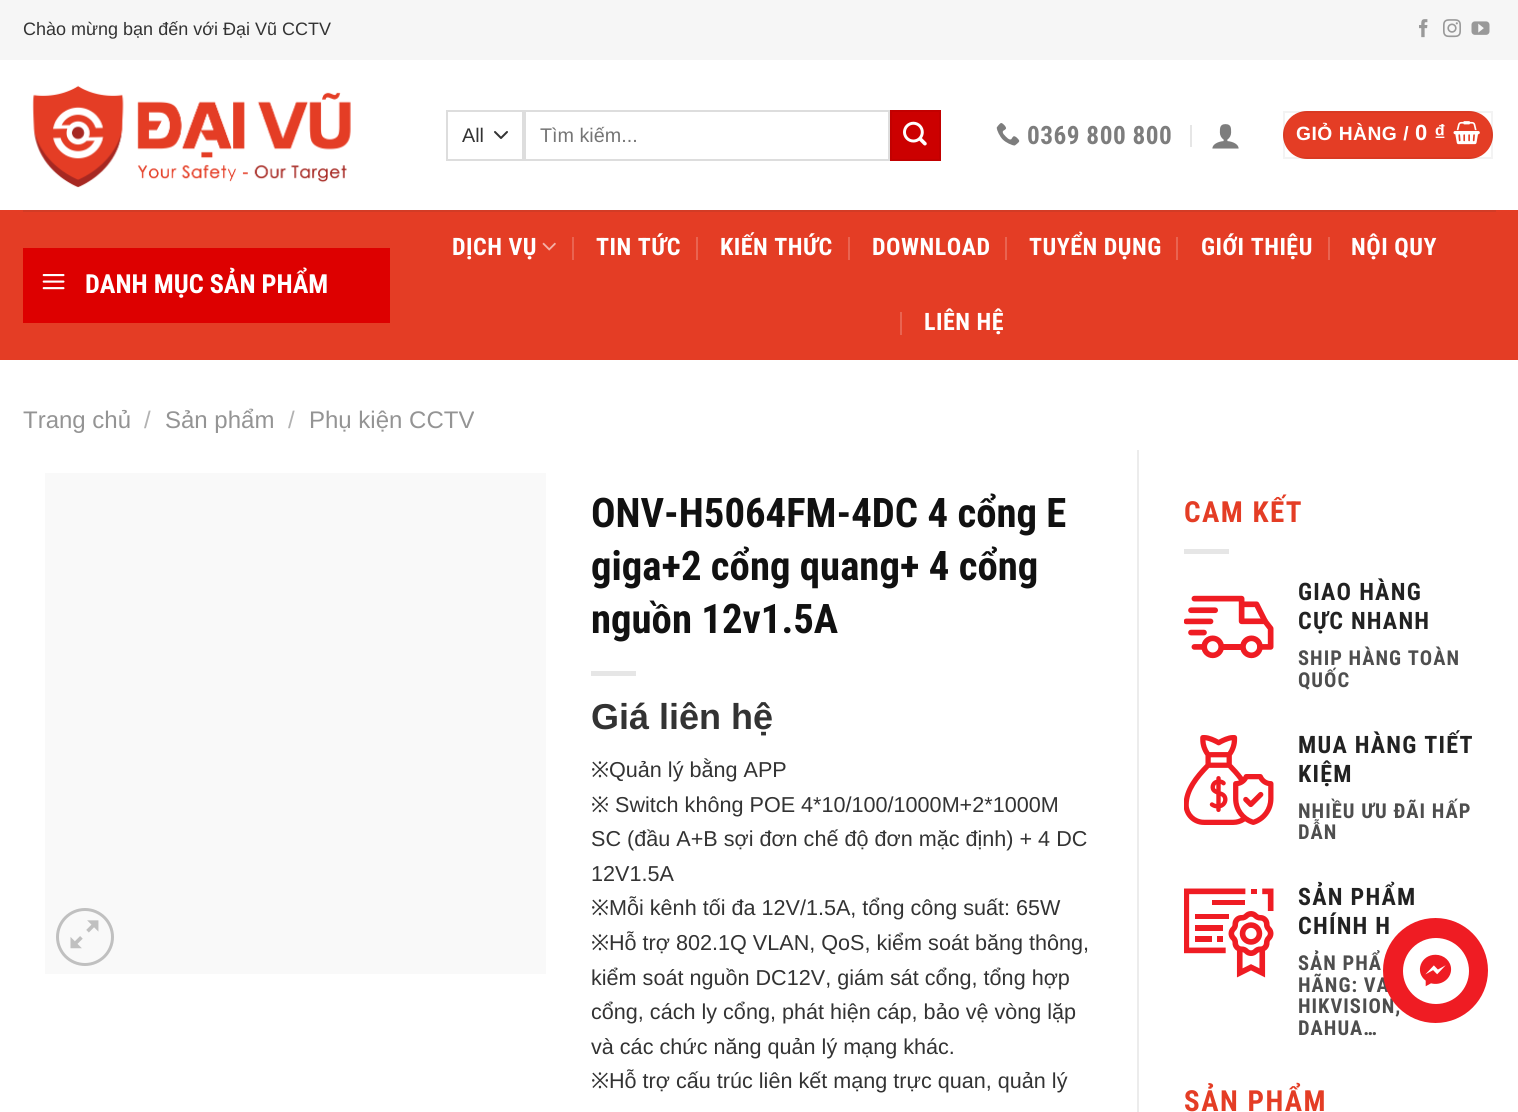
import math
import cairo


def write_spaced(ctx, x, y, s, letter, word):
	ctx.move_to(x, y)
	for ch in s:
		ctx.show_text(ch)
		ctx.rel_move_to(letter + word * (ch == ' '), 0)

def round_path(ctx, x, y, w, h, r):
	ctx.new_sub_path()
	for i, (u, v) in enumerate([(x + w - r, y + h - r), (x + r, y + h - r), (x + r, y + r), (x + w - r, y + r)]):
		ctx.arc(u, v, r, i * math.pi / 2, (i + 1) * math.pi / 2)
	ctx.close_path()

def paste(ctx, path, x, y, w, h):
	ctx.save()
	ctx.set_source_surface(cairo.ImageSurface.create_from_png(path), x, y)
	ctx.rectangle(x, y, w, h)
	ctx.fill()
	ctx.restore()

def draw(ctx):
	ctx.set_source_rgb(1, 1, 1)
	ctx.paint()
	ctx.set_source_rgb(0.961, 0.961, 0.961)
	ctx.rectangle(0, 0, 1518, 60)
	ctx.fill()
	ctx.select_font_face('Liberation Sans')
	ctx.set_font_size(18)
	ctx.set_source_rgb(0.2, 0.2, 0.2)
	ctx.move_to(23, 35)
	ctx.show_text('Chào mừng bạn đến với Đại Vũ CCTV')
	paste(ctx, 'media/1.png', 1419, 19, 9, 19)
	paste(ctx, 'media/2.png', 1443, 19, 18, 19)
	paste(ctx, 'media/3.png', 1471, 21, 19, 14)
	paste(ctx, 'media/4.png', 32, 85, 319, 103)
	ctx.new_path()
	ctx.move_to(495, 132)
	ctx.line_to(501, 138)
	ctx.line_to(507, 132)
	ctx.set_line_cap(cairo.LINE_CAP_ROUND)
	ctx.set_line_join(cairo.LINE_JOIN_ROUND)
	ctx.stroke()
	ctx.rectangle(447, 111, 76, 49)
	ctx.set_source_rgb(0.867, 0.867, 0.867)
	ctx.set_line_cap(cairo.LINE_CAP_BUTT)
	ctx.set_line_join(cairo.LINE_JOIN_MITER)
	ctx.stroke()
	ctx.set_font_size(19.75)
	ctx.set_source_rgb(0.2, 0.2, 0.2)
	ctx.move_to(462, 142)
	ctx.show_text('All')
	ctx.rectangle(525, 111, 364, 49)
	ctx.set_source_rgb(0.867, 0.867, 0.867)
	ctx.stroke()
	ctx.set_source_rgb(0.459, 0.459, 0.459)
	ctx.move_to(540, 142)
	ctx.show_text('Tìm kiếm...')
	ctx.set_source_rgb(0.8, 0, 0)
	ctx.rectangle(891, 111, 49, 49)
	ctx.fill_preserve()
	ctx.set_source_rgb(0.761, 0, 0)
	ctx.stroke()
	paste(ctx, 'media/5.png', 903, 121, 24, 25)
	paste(ctx, 'media/6.png', 996, 123, 24, 23)
	ctx.select_font_face('Roboto Condensed', cairo.FONT_SLANT_NORMAL, cairo.FONT_WEIGHT_BOLD)
	ctx.set_font_size(25.25)
	ctx.set_source_rgb(0.49, 0.49, 0.49)
	write_spaced(ctx, 1027, 144, '0369 800 800', 0.5, 0)
	ctx.set_source_rgb(0.902, 0.902, 0.902)
	ctx.rectangle(1190, 125, 2, 22)
	ctx.fill()
	paste(ctx, 'media/7.png', 1212, 124, 27, 25)
	ctx.set_source_rgb(0.894, 0.239, 0.145)
	round_path(ctx, 1283, 111, 210, 48, 24)
	ctx.fill()
	ctx.rectangle(1284, 112, 208, 46)
	ctx.set_source_rgba(0, 0, 0, 0.05)
	ctx.stroke()
	ctx.select_font_face('Liberation Sans', cairo.FONT_SLANT_NORMAL, cairo.FONT_WEIGHT_BOLD)
	ctx.set_font_size(19.25)
	ctx.set_source_rgb(1, 1, 1)
	write_spaced(ctx, 1296, 140, 'GIỎ HÀNG /', 0.5, 0)
	ctx.set_font_size(22)
	write_spaced(ctx, 1415, 140, '0 ₫', 0.5, 0)
	paste(ctx, 'media/8.png', 1453, 121, 27, 24)
	ctx.set_source_rgb(0.894, 0.239, 0.145)
	ctx.rectangle(0, 210, 1518, 150)
	ctx.fill()
	ctx.set_source_rgb(0.824, 0.235, 0.149)
	ctx.rectangle(23, 210, 1473, 2)
	ctx.fill()
	ctx.set_source_rgb(0.867, 0, 0)
	ctx.rectangle(23, 248, 367, 75)
	ctx.fill()
	paste(ctx, 'media/9.png', 42, 274, 23, 16)
	ctx.select_font_face('Roboto Condensed', cairo.FONT_SLANT_NORMAL, cairo.FONT_WEIGHT_BOLD)
	ctx.set_font_size(26.25)
	ctx.set_source_rgb(1, 1, 1)
	ctx.move_to(85, 293)
	ctx.show_text('DANH MỤC SẢN PHẨM')
	ctx.set_font_size(24)
	write_spaced(ctx, 452, 255, 'DỊCH VỤ', 0.5, 0)
	paste(ctx, 'media/10.png', 542, 242, 14, 9)
	ctx.set_source_rgb(0.914, 0.392, 0.318)
	ctx.rectangle(572, 237, 2, 23)
	ctx.fill()
	ctx.set_source_rgb(1, 1, 1)
	write_spaced(ctx, 596, 255, 'TIN TỨC', 0.5, 0)
	ctx.set_source_rgb(0.914, 0.392, 0.318)
	ctx.rectangle(696, 237, 2, 23)
	ctx.fill()
	ctx.set_source_rgb(1, 1, 1)
	write_spaced(ctx, 720, 255, 'KIẾN THỨC', 0.5, 0)
	ctx.set_source_rgb(0.914, 0.392, 0.318)
	ctx.rectangle(848, 237, 2, 23)
	ctx.fill()
	ctx.set_source_rgb(1, 1, 1)
	write_spaced(ctx, 872, 255, 'DOWNLOAD', 0.5, 0)
	ctx.set_source_rgb(0.914, 0.392, 0.318)
	ctx.rectangle(1005, 237, 2, 23)
	ctx.fill()
	ctx.set_source_rgb(1, 1, 1)
	write_spaced(ctx, 1029, 255, 'TUYỂN DỤNG', 0.5, 0)
	ctx.set_source_rgb(0.914, 0.392, 0.318)
	ctx.rectangle(1176, 237, 2, 23)
	ctx.fill()
	ctx.set_source_rgb(1, 1, 1)
	write_spaced(ctx, 1201, 255, 'GIỚI THIỆU', 0.5, 0)
	ctx.set_source_rgb(0.914, 0.392, 0.318)
	ctx.rectangle(1328, 237, 2, 23)
	ctx.fill()
	ctx.set_source_rgb(1, 1, 1)
	write_spaced(ctx, 1351, 255, 'NỘI QUY', 0.5, 0)
	ctx.set_source_rgb(0.914, 0.392, 0.318)
	ctx.rectangle(900, 312, 2, 23)
	ctx.fill()
	ctx.set_source_rgb(1, 1, 1)
	write_spaced(ctx, 924, 330, 'LIÊN HỆ', 0.5, 0)
	ctx.select_font_face('Liberation Sans')
	ctx.set_source_rgb(0.58, 0.58, 0.58)
	ctx.move_to(23, 428)
	ctx.show_text('Trang chủ')
	ctx.set_source_rgb(0.698, 0.698, 0.698)
	ctx.move_to(144, 428)
	ctx.show_text('/')
	ctx.set_source_rgb(0.58, 0.58, 0.58)
	ctx.move_to(165, 428)
	ctx.show_text('Sản phẩm')
	ctx.set_source_rgb(0.698, 0.698, 0.698)
	ctx.move_to(288, 428)
	ctx.show_text('/')
	ctx.set_source_rgb(0.58, 0.58, 0.58)
	ctx.move_to(309, 428)
	ctx.show_text('Phụ kiện CCTV')
	ctx.set_source_rgb(0.925, 0.925, 0.925)
	ctx.rectangle(1137, 450, 2, 662)
	ctx.fill()
	ctx.set_source_rgb(0.973, 0.973, 0.973)
	ctx.rectangle(45, 473, 501, 501)
	ctx.fill()
	ctx.arc(85, 937, 27.5, 0, 2 * math.pi)
	ctx.set_source_rgb(0.753, 0.753, 0.753)
	ctx.set_line_width(3)
	ctx.stroke()
	paste(ctx, 'media/11.png', 70, 920, 29, 29)
	ctx.select_font_face('Roboto Condensed', cairo.FONT_SLANT_NORMAL, cairo.FONT_WEIGHT_BOLD)
	ctx.set_font_size(40.75)
	ctx.set_source_rgb(0.067, 0.067, 0.067)
	for x, y, s in [
		(591, 527, 'ONV-H5064FM-4DC 4 cổng E'),
		(591, 580, 'giga+2 cổng quang+ 4 cổng'),
		(591, 633, 'nguồn 12v1.5A'),
	]:
		ctx.move_to(x, y)
		ctx.show_text(s)
	ctx.set_source_rgb(0.902, 0.902, 0.902)
	ctx.rectangle(591, 671, 45, 5)
	ctx.fill()
	ctx.select_font_face('Liberation Sans', cairo.FONT_SLANT_NORMAL, cairo.FONT_WEIGHT_BOLD)
	ctx.set_font_size(36)
	ctx.set_source_rgb(0.2, 0.2, 0.2)
	ctx.move_to(591, 729)
	ctx.show_text('Giá liên hệ')
	ctx.select_font_face('Noto Sans')
	ctx.set_font_size(21.6)
	ctx.move_to(591, 777)
	ctx.show_text('※')
	ctx.select_font_face('Liberation Sans')
	ctx.move_to(609, 777)
	ctx.show_text('Quản lý bằng APP')
	ctx.select_font_face('Noto Sans')
	ctx.move_to(591, 812)
	ctx.show_text('※')
	ctx.select_font_face('Liberation Sans')
	for x, y, s in [
		(615, 812, 'Switch không POE 4*10/100/1000M+2*1000M'),
		(591, 846, 'SC (đầu A+B sợi đơn chế độ đơn mặc định) + 4 DC'),
		(591, 881, '12V1.5A'),
	]:
		ctx.move_to(x, y)
		ctx.show_text(s)
	ctx.select_font_face('Noto Sans')
	ctx.move_to(591, 915)
	ctx.show_text('※')
	ctx.select_font_face('Liberation Sans')
	ctx.move_to(609, 915)
	ctx.show_text('Mỗi kênh tối đa 12V/1.5A, tổng công suất: 65W')
	ctx.select_font_face('Noto Sans')
	ctx.move_to(591, 950)
	ctx.show_text('※')
	ctx.select_font_face('Liberation Sans')
	for x, y, s in [
		(609, 950, 'Hỗ trợ 802.1Q VLAN, QoS, kiểm soát băng thông,'),
		(591, 985, 'kiểm soát nguồn DC12V, giám sát cổng, tổng hợp'),
		(591, 1019, 'cổng, cách ly cổng, phát hiện cáp, bảo vệ vòng lặp'),
		(591, 1054, 'và các chức năng quản lý mạng khác.'),
	]:
		ctx.move_to(x, y)
		ctx.show_text(s)
	ctx.select_font_face('Noto Sans')
	ctx.move_to(591, 1088)
	ctx.show_text('※')
	ctx.select_font_face('Liberation Sans')
	ctx.move_to(609, 1088)
	ctx.show_text('Hỗ trợ cấu trúc liên kết mạng trực quan, quản lý')
	ctx.select_font_face('Roboto Condensed', cairo.FONT_SLANT_NORMAL, cairo.FONT_WEIGHT_BOLD)
	ctx.set_font_size(29)
	ctx.set_source_rgb(0.894, 0.239, 0.145)
	write_spaced(ctx, 1184, 522, 'CAM KẾT', 1.5, 0)
	ctx.set_source_rgb(0.902, 0.902, 0.902)
	ctx.rectangle(1184, 549, 45, 5)
	ctx.fill()
	paste(ctx, 'media/12.png', 1184, 595, 90, 64)
	ctx.set_font_size(24)
	ctx.set_source_rgb(0.133, 0.133, 0.133)
	write_spaced(ctx, 1298, 600, 'GIAO HÀNG', 1.25, 0)
	write_spaced(ctx, 1298, 629, 'CỰC NHANH', 1.25, 0)
	ctx.set_font_size(20.5)
	ctx.set_source_rgb(0.306, 0.306, 0.306)
	write_spaced(ctx, 1298, 665, 'SHIP HÀNG TOÀN', 1, 0)
	write_spaced(ctx, 1298, 687, 'QUỐC', 1, 0)
	paste(ctx, 'media/13.png', 1184, 735, 90, 90)
	ctx.set_font_size(24)
	ctx.set_source_rgb(0.133, 0.133, 0.133)
	write_spaced(ctx, 1298, 753, 'MUA HÀNG TIẾT', 1.25, 0)
	write_spaced(ctx, 1298, 782, 'KIỆM', 1.25, 0)
	ctx.set_font_size(20.5)
	ctx.set_source_rgb(0.306, 0.306, 0.306)
	write_spaced(ctx, 1298, 818, 'NHIỀU ƯU ĐÃI HẤP', 1, 0)
	write_spaced(ctx, 1298, 839, 'DẪN', 1, 0)
	paste(ctx, 'media/14.png', 1184, 888, 90, 90)
	ctx.set_font_size(24)
	ctx.set_source_rgb(0.133, 0.133, 0.133)
	write_spaced(ctx, 1298, 905, 'SẢN PHẨM', 1.25, 0)
	write_spaced(ctx, 1298, 934, 'CHÍNH H', 1.25, 0)
	ctx.set_font_size(20.5)
	ctx.set_source_rgb(0.306, 0.306, 0.306)
	for x, y, s in [
		(1298, 970, 'SẢN PHẨ'),
		(1298, 992, 'HÃNG: VA'),
		(1298, 1013, 'HIKVISION,'),
		(1298, 1035, 'DAHUA…'),
	]:
		write_spaced(ctx, x, y, s, 1, 0)
	ctx.set_font_size(29)
	ctx.set_source_rgb(0.894, 0.239, 0.145)
	write_spaced(ctx, 1184, 1111, 'SẢN PHẨM', 1.5, 0)
	ctx.set_source_rgb(0.937, 0.11, 0.137)
	ctx.new_path()
	ctx.arc(1435.5, 970.5, 52.5, 0, 2 * math.pi)
	ctx.fill()
	ctx.set_source_rgb(1, 1, 1)
	ctx.arc(1436, 971, 33, 0, 2 * math.pi)
	ctx.fill()
	paste(ctx, 'media/15.png', 1419, 954, 33, 33)


surface = cairo.ImageSurface(cairo.FORMAT_RGB24, 1518, 1112)
ctx = cairo.Context(surface)
options = cairo.FontOptions()
options.set_hint_metrics(cairo.HINT_METRICS_OFF)
options.set_hint_style(cairo.HINT_STYLE_NONE)
ctx.set_font_options(options)
ctx.set_miter_limit(4)
draw(ctx)
surface.write_to_png('image.png')
